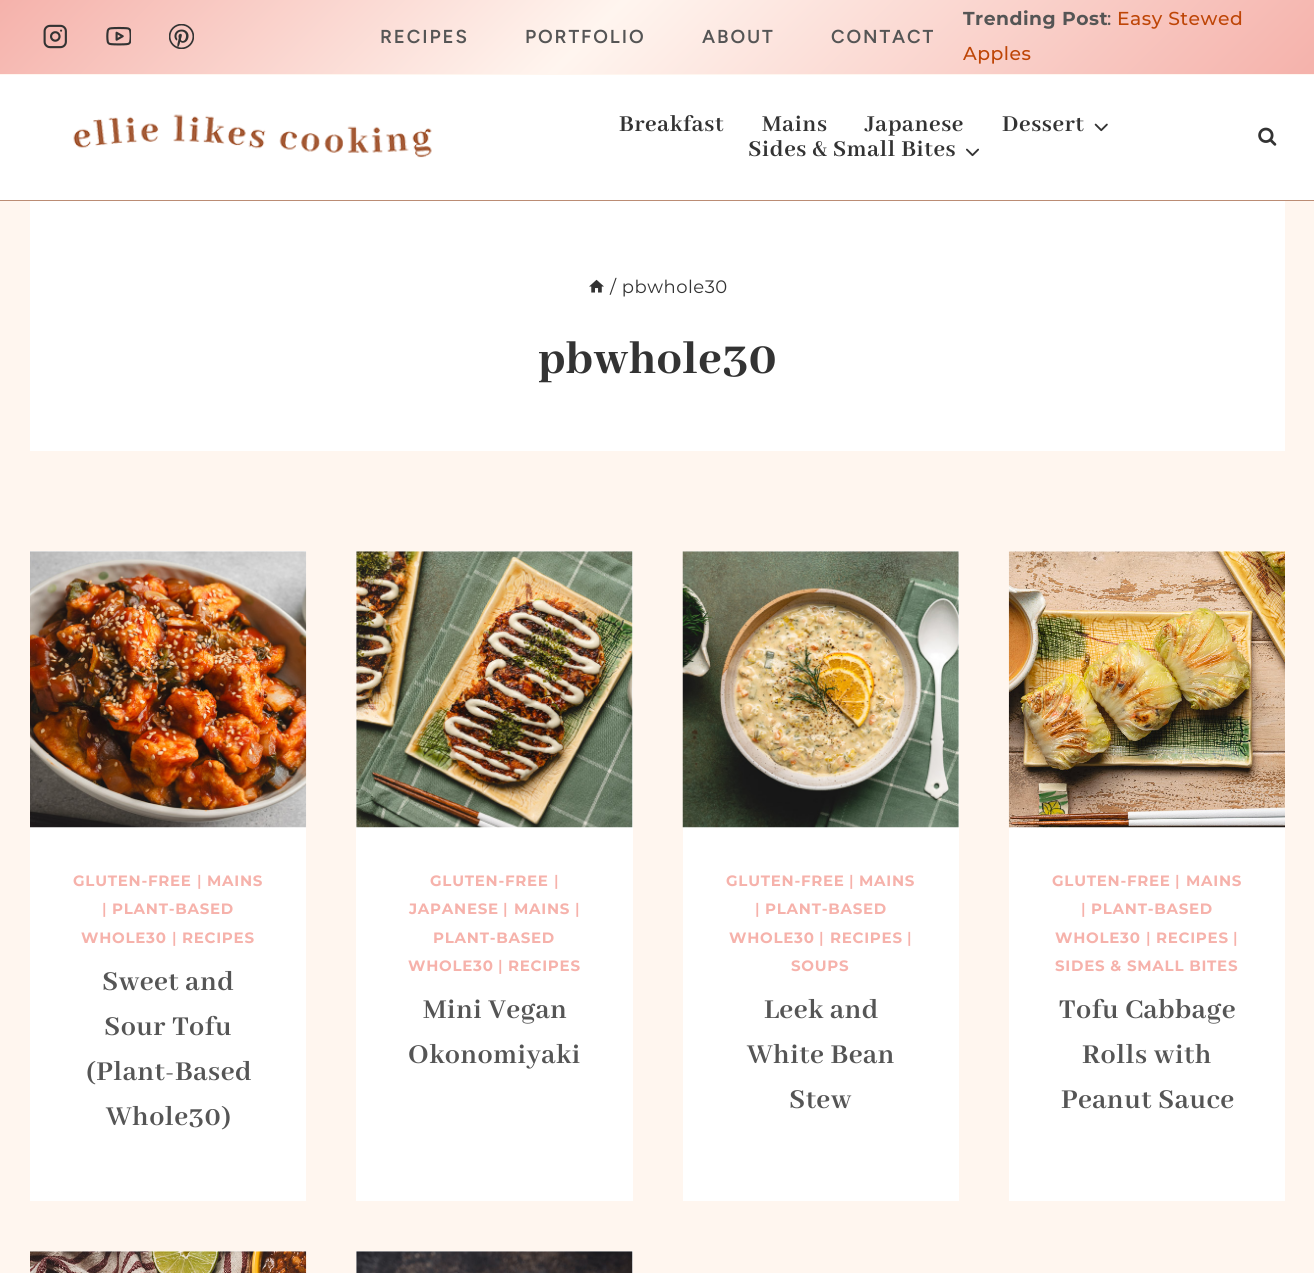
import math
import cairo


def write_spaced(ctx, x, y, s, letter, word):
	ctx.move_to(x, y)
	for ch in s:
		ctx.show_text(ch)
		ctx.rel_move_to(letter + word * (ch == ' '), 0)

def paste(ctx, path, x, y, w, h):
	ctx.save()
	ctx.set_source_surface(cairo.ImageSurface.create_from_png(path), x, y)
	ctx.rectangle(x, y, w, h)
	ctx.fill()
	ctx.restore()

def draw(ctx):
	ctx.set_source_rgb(1, 0.961, 0.937)
	ctx.paint()
	ctx.set_source_rgb(1, 1, 1)
	ctx.rectangle(0, 75, 1314, 125)
	ctx.fill()
	gradient = cairo.LinearGradient(310, -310, 1005, 384)
	gradient.add_color_stop_rgba(0, 0.961, 0.698, 0.671, 1)
	gradient.add_color_stop_rgba(0.45, 1, 0.961, 0.937, 1)
	gradient.add_color_stop_rgba(1, 0.961, 0.698, 0.671, 1)
	ctx.set_source(gradient)
	ctx.rectangle(0, 0, 1314, 74)
	ctx.fill()
	paste(ctx, 'media/1.png', 43, 24, 24, 25)
	paste(ctx, 'media/2.png', 106, 26, 25, 20)
	paste(ctx, 'media/3.png', 169, 24, 25, 25)
	ctx.select_font_face('Figtree SemiBold')
	ctx.set_font_size(18.75)
	ctx.set_source_rgb(0.333, 0.333, 0.333)
	for x, y, s in [
		(380, 43, 'RECIPES'),
		(525, 43, 'PORTFOLIO'),
		(702, 43, 'ABOUT'),
		(831, 43, 'CONTACT'),
	]:
		write_spaced(ctx, x, y, s, 1.9, 0)
	ctx.select_font_face('Montserrat', cairo.FONT_SLANT_NORMAL, cairo.FONT_WEIGHT_BOLD)
	write_spaced(ctx, 963, 25, 'Trending Post', 0.5, 0)
	ctx.select_font_face('Montserrat Medium')
	write_spaced(ctx, 1107, 25, ':', 0.5, 0)
	ctx.set_source_rgb(0.745, 0.271, 0.027)
	write_spaced(ctx, 1117, 25, 'Easy Stewed', 0.5, 0)
	write_spaced(ctx, 963, 60, 'Apples', 0.5, 0)
	ctx.set_source_rgb(0.733, 0.549, 0.455)
	ctx.rectangle(0, 200, 1314, 1)
	ctx.fill()
	paste(ctx, 'media/4.png', 73, 114, 359, 44)
	ctx.select_font_face('Abhaya Libre', cairo.FONT_SLANT_NORMAL, cairo.FONT_WEIGHT_BOLD)
	ctx.set_font_size(25)
	ctx.set_source_rgb(0.2, 0.2, 0.2)
	for x, y, s in [
		(619, 131, 'Breakfast'),
		(762, 131, 'Mains'),
		(865, 131, 'Japanese'),
		(1002, 131, 'Dessert'),
	]:
		write_spaced(ctx, x, y, s, 0.6, 0)
	paste(ctx, 'media/5.png', 1094, 123, 14, 9)
	write_spaced(ctx, 748, 156, 'Sides & Small Bites', 0.6, 0)
	paste(ctx, 'media/6.png', 966, 148, 13, 9)
	paste(ctx, 'media/7.png', 1258, 127, 19, 19)
	ctx.set_source_rgb(1, 1, 1)
	ctx.rectangle(30, 201, 1255, 250)
	ctx.fill()
	paste(ctx, 'media/8.png', 589, 279, 15, 14)
	ctx.select_font_face('Montserrat')
	ctx.set_font_size(18)
	ctx.set_source_rgb(0.2, 0.2, 0.2)
	write_spaced(ctx, 610, 293, '/ pbwhole30', 0.5, 0)
	ctx.select_font_face('Abhaya Libre ExtraBold ExtraBold')
	ctx.set_font_size(50)
	write_spaced(ctx, 538, 373, 'pbwhole30', 0.5, 0)
	ctx.set_source_rgb(1, 1, 1)
	ctx.rectangle(30, 551, 276, 650)
	ctx.fill()
	paste(ctx, 'media/9.png', 30, 551, 277, 277)
	ctx.select_font_face('Montserrat', cairo.FONT_SLANT_NORMAL, cairo.FONT_WEIGHT_BOLD)
	ctx.set_font_size(15)
	ctx.set_source_rgb(0.961, 0.698, 0.671)
	write_spaced(ctx, 73, 886, 'GLUTEN-FREE', 0.75, 0)
	ctx.select_font_face('Montserrat SemiBold')
	write_spaced(ctx, 197, 886, '|', 0.75, 0)
	ctx.select_font_face('Montserrat', cairo.FONT_SLANT_NORMAL, cairo.FONT_WEIGHT_BOLD)
	write_spaced(ctx, 207, 886, 'MAINS', 0.75, 0)
	ctx.select_font_face('Montserrat SemiBold')
	write_spaced(ctx, 102, 914, '|', 0.75, 0)
	ctx.select_font_face('Montserrat', cairo.FONT_SLANT_NORMAL, cairo.FONT_WEIGHT_BOLD)
	write_spaced(ctx, 112, 914, 'PLANT-BASED', 0.75, 0)
	write_spaced(ctx, 81, 943, 'WHOLE30', 0.75, 0)
	ctx.select_font_face('Montserrat SemiBold')
	write_spaced(ctx, 172, 943, '|', 0.75, 0)
	ctx.select_font_face('Montserrat', cairo.FONT_SLANT_NORMAL, cairo.FONT_WEIGHT_BOLD)
	write_spaced(ctx, 182, 943, 'RECIPES', 0.75, 0)
	ctx.select_font_face('Abhaya Libre', cairo.FONT_SLANT_NORMAL, cairo.FONT_WEIGHT_BOLD)
	ctx.set_font_size(30)
	ctx.set_source_rgb(0.333, 0.333, 0.333)
	for x, y, s in [
		(102, 990, 'Sweet and'),
		(104, 1035, 'Sour Tofu'),
		(86, 1080, '(Plant-Based'),
		(106, 1125, 'Whole30)'),
	]:
		write_spaced(ctx, x, y, s, 0.5, 0)
	ctx.set_source_rgb(1, 1, 1)
	ctx.rectangle(356, 551, 277, 650)
	ctx.fill()
	paste(ctx, 'media/10.png', 356, 551, 277, 277)
	ctx.select_font_face('Montserrat', cairo.FONT_SLANT_NORMAL, cairo.FONT_WEIGHT_BOLD)
	ctx.set_font_size(15)
	ctx.set_source_rgb(0.961, 0.698, 0.671)
	write_spaced(ctx, 430, 886, 'GLUTEN-FREE', 0.75, 0)
	ctx.select_font_face('Montserrat SemiBold')
	write_spaced(ctx, 554, 886, '|', 0.75, 0)
	ctx.select_font_face('Montserrat', cairo.FONT_SLANT_NORMAL, cairo.FONT_WEIGHT_BOLD)
	write_spaced(ctx, 409, 914, 'JAPANESE', 0.75, 0)
	ctx.select_font_face('Montserrat SemiBold')
	write_spaced(ctx, 503, 914, '|', 0.75, 0)
	ctx.select_font_face('Montserrat', cairo.FONT_SLANT_NORMAL, cairo.FONT_WEIGHT_BOLD)
	write_spaced(ctx, 514, 914, 'MAINS', 0.75, 0)
	ctx.select_font_face('Montserrat SemiBold')
	write_spaced(ctx, 575, 914, '|', 0.75, 0)
	ctx.select_font_face('Montserrat', cairo.FONT_SLANT_NORMAL, cairo.FONT_WEIGHT_BOLD)
	write_spaced(ctx, 433, 943, 'PLANT-BASED', 0.75, 0)
	write_spaced(ctx, 408, 971, 'WHOLE30', 0.75, 0)
	ctx.select_font_face('Montserrat SemiBold')
	write_spaced(ctx, 498, 971, '|', 0.75, 0)
	ctx.select_font_face('Montserrat', cairo.FONT_SLANT_NORMAL, cairo.FONT_WEIGHT_BOLD)
	write_spaced(ctx, 508, 971, 'RECIPES', 0.75, 0)
	ctx.select_font_face('Abhaya Libre', cairo.FONT_SLANT_NORMAL, cairo.FONT_WEIGHT_BOLD)
	ctx.set_font_size(30)
	ctx.set_source_rgb(0.333, 0.333, 0.333)
	write_spaced(ctx, 423, 1018, 'Mini Vegan', 0.5, 0)
	write_spaced(ctx, 408, 1063, 'Okonomiyaki', 0.5, 0)
	ctx.set_source_rgb(1, 1, 1)
	ctx.rectangle(683, 551, 276, 650)
	ctx.fill()
	paste(ctx, 'media/11.png', 682, 551, 277, 277)
	ctx.select_font_face('Montserrat', cairo.FONT_SLANT_NORMAL, cairo.FONT_WEIGHT_BOLD)
	ctx.set_font_size(15)
	ctx.set_source_rgb(0.961, 0.698, 0.671)
	write_spaced(ctx, 726, 886, 'GLUTEN-FREE', 0.75, 0)
	ctx.select_font_face('Montserrat SemiBold')
	write_spaced(ctx, 849, 886, '|', 0.75, 0)
	ctx.select_font_face('Montserrat', cairo.FONT_SLANT_NORMAL, cairo.FONT_WEIGHT_BOLD)
	write_spaced(ctx, 859, 886, 'MAINS', 0.75, 0)
	ctx.select_font_face('Montserrat SemiBold')
	write_spaced(ctx, 755, 914, '|', 0.75, 0)
	ctx.select_font_face('Montserrat', cairo.FONT_SLANT_NORMAL, cairo.FONT_WEIGHT_BOLD)
	write_spaced(ctx, 765, 914, 'PLANT-BASED', 0.75, 0)
	write_spaced(ctx, 729, 943, 'WHOLE30', 0.75, 0)
	ctx.select_font_face('Montserrat SemiBold')
	write_spaced(ctx, 819, 943, '|', 0.75, 0)
	ctx.select_font_face('Montserrat', cairo.FONT_SLANT_NORMAL, cairo.FONT_WEIGHT_BOLD)
	write_spaced(ctx, 830, 943, 'RECIPES', 0.75, 0)
	ctx.select_font_face('Montserrat SemiBold')
	write_spaced(ctx, 907, 943, '|', 0.75, 0)
	ctx.select_font_face('Montserrat', cairo.FONT_SLANT_NORMAL, cairo.FONT_WEIGHT_BOLD)
	write_spaced(ctx, 791, 971, 'SOUPS', 0.75, 0)
	ctx.select_font_face('Abhaya Libre', cairo.FONT_SLANT_NORMAL, cairo.FONT_WEIGHT_BOLD)
	ctx.set_font_size(30)
	ctx.set_source_rgb(0.333, 0.333, 0.333)
	for x, y, s in [
		(764, 1018, 'Leek and'),
		(747, 1063, 'White Bean'),
		(789, 1108, 'Stew'),
	]:
		write_spaced(ctx, x, y, s, 0.5, 0)
	ctx.set_source_rgb(1, 1, 1)
	ctx.rectangle(1009, 551, 276, 650)
	ctx.fill()
	paste(ctx, 'media/12.png', 1008, 551, 277, 277)
	ctx.select_font_face('Montserrat', cairo.FONT_SLANT_NORMAL, cairo.FONT_WEIGHT_BOLD)
	ctx.set_font_size(15)
	ctx.set_source_rgb(0.961, 0.698, 0.671)
	write_spaced(ctx, 1052, 886, 'GLUTEN-FREE', 0.75, 0)
	ctx.select_font_face('Montserrat SemiBold')
	write_spaced(ctx, 1175, 886, '|', 0.75, 0)
	ctx.select_font_face('Montserrat', cairo.FONT_SLANT_NORMAL, cairo.FONT_WEIGHT_BOLD)
	write_spaced(ctx, 1186, 886, 'MAINS', 0.75, 0)
	ctx.select_font_face('Montserrat SemiBold')
	write_spaced(ctx, 1081, 914, '|', 0.75, 0)
	ctx.select_font_face('Montserrat', cairo.FONT_SLANT_NORMAL, cairo.FONT_WEIGHT_BOLD)
	write_spaced(ctx, 1091, 914, 'PLANT-BASED', 0.75, 0)
	write_spaced(ctx, 1055, 943, 'WHOLE30', 0.75, 0)
	ctx.select_font_face('Montserrat SemiBold')
	write_spaced(ctx, 1146, 943, '|', 0.75, 0)
	ctx.select_font_face('Montserrat', cairo.FONT_SLANT_NORMAL, cairo.FONT_WEIGHT_BOLD)
	write_spaced(ctx, 1156, 943, 'RECIPES', 0.75, 0)
	ctx.select_font_face('Montserrat SemiBold')
	write_spaced(ctx, 1233, 943, '|', 0.75, 0)
	ctx.select_font_face('Montserrat', cairo.FONT_SLANT_NORMAL, cairo.FONT_WEIGHT_BOLD)
	write_spaced(ctx, 1055, 971, 'SIDES & SMALL BITES', 0.75, 0)
	ctx.select_font_face('Abhaya Libre', cairo.FONT_SLANT_NORMAL, cairo.FONT_WEIGHT_BOLD)
	ctx.set_font_size(30)
	ctx.set_source_rgb(0.333, 0.333, 0.333)
	for x, y, s in [
		(1059, 1018, 'Tofu Cabbage'),
		(1082, 1063, 'Rolls with'),
		(1061, 1108, 'Peanut Sauce'),
	]:
		write_spaced(ctx, x, y, s, 0.5, 0)
	ctx.set_source_rgb(1, 1, 1)
	ctx.rectangle(30, 1251, 276, 1)
	ctx.fill()
	paste(ctx, 'media/13.png', 30, 1251, 277, 22)
	ctx.rectangle(356, 1251, 277, 22)
	ctx.fill()
	paste(ctx, 'media/14.png', 356, 1251, 277, 22)


surface = cairo.ImageSurface(cairo.FORMAT_RGB24, 1314, 1273)
ctx = cairo.Context(surface)
options = cairo.FontOptions()
options.set_hint_metrics(cairo.HINT_METRICS_OFF)
options.set_hint_style(cairo.HINT_STYLE_NONE)
ctx.set_font_options(options)
ctx.set_miter_limit(4)
draw(ctx)
surface.write_to_png('image.png')
